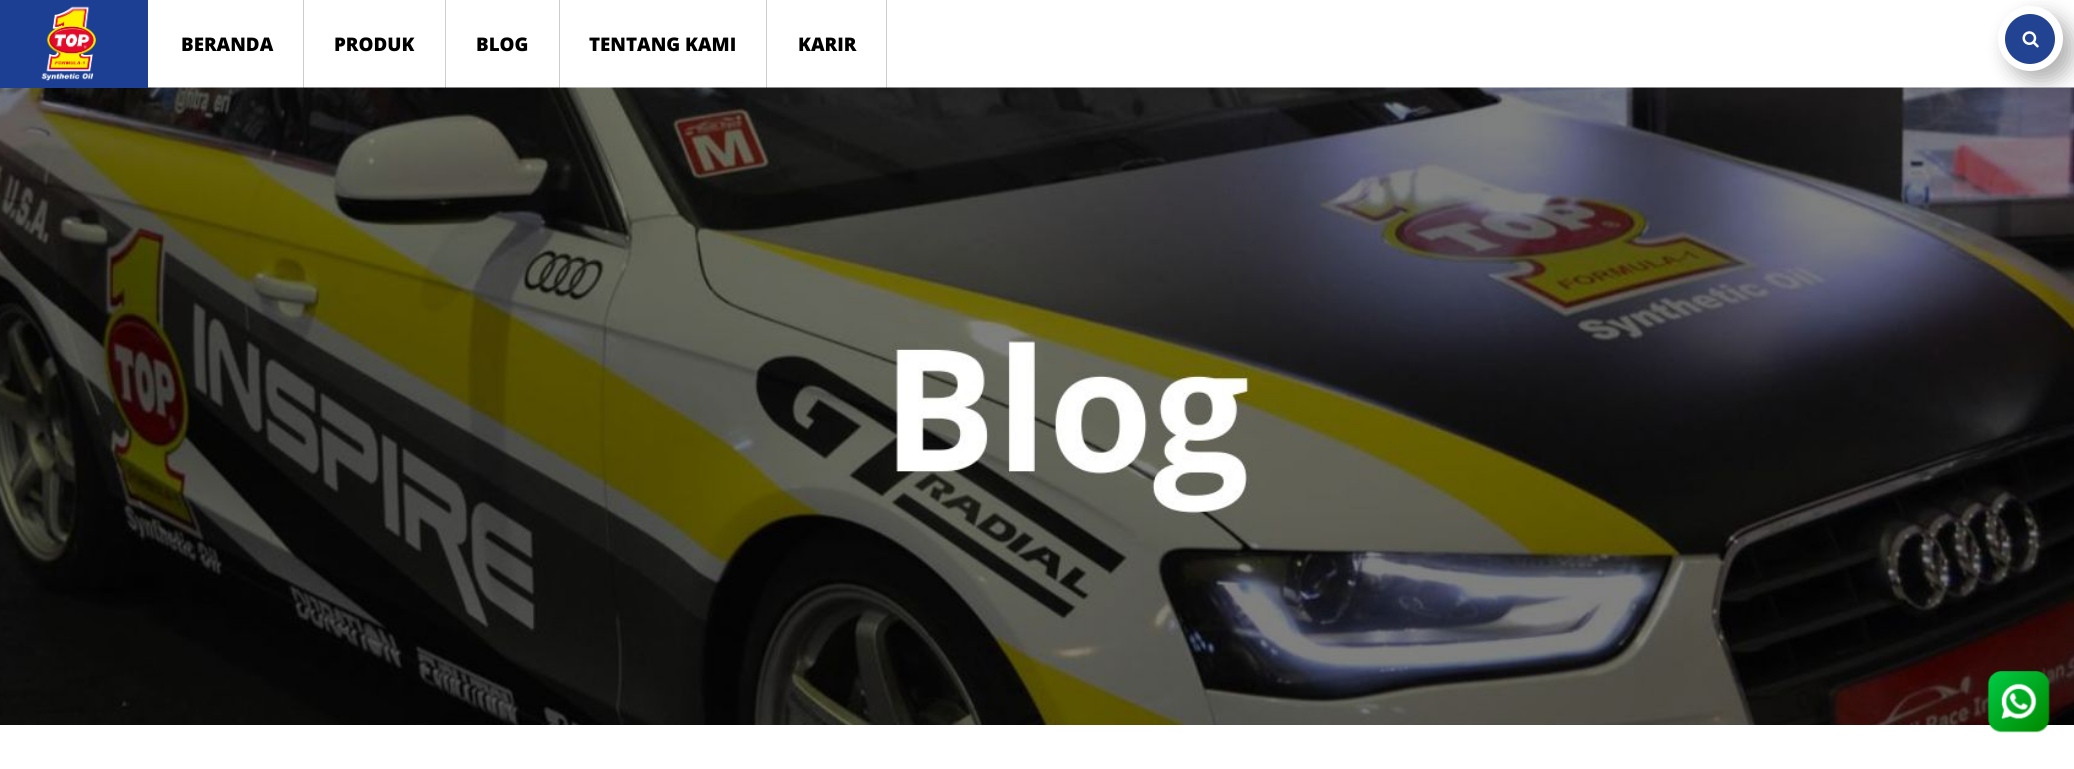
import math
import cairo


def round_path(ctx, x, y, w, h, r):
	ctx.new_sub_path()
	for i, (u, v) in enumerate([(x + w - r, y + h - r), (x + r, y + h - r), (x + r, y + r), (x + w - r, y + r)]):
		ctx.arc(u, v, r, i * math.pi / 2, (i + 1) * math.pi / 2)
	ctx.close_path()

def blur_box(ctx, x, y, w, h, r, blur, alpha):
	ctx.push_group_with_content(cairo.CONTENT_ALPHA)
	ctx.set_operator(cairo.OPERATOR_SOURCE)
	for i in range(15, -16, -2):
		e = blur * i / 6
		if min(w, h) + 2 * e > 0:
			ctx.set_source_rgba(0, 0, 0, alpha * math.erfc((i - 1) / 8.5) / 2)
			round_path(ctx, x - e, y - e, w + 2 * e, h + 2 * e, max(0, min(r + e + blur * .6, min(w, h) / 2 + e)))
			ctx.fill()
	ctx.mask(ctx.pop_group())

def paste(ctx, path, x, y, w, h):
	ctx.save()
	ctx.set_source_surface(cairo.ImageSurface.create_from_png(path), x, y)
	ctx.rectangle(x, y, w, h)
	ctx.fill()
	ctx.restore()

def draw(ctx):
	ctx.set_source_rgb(1, 1, 1)
	ctx.paint()
	ctx.set_source_rgb(0.804, 0.804, 0.804)
	ctx.rectangle(303, 0, 1, 88)
	ctx.rectangle(445, 0, 1, 88)
	ctx.rectangle(559, 0, 1, 88)
	ctx.rectangle(766, 0, 1, 88)
	ctx.rectangle(886, 0, 1, 88)
	ctx.fill()
	ctx.set_source_rgb(0, 0, 0)
	blur_box(ctx, 2008, 16, 65, 65, 32.5, 10, 0.3)
	paste(ctx, 'media/3.png', 0, 87, 2074, 638)
	ctx.set_source_rgb(0.11, 0.247, 0.58)
	ctx.rectangle(0, 0, 148, 88)
	ctx.fill()
	paste(ctx, 'media/1.png', 41, 6, 56, 75)
	ctx.select_font_face('Open Sans ExtraBold')
	ctx.set_font_size(18.75)
	ctx.set_source_rgb(0, 0, 0)
	for x, y, s in [
		(181, 51, 'BERANDA'),
		(334, 51, 'PRODUK'),
		(476, 51, 'BLOG'),
		(589, 51, 'TENTANG KAMI'),
		(798, 51, 'KARIR'),
	]:
		ctx.move_to(x, y)
		ctx.show_text(s)
	ctx.set_source_rgb(1, 1, 1)
	ctx.new_path()
	ctx.arc(2030.5, 38.5, 32.5, 0, 2 * math.pi)
	ctx.fill()
	ctx.set_source_rgb(0.133, 0.259, 0.573)
	ctx.arc(2030, 39, 25, 0, 2 * math.pi)
	ctx.fill()
	paste(ctx, 'media/2.png', 2022, 31, 17, 17)
	paste(ctx, 'media/4.png', 1987, 671, 63, 62)


surface = cairo.ImageSurface(cairo.FORMAT_RGB24, 2074, 769)
ctx = cairo.Context(surface)
options = cairo.FontOptions()
options.set_hint_metrics(cairo.HINT_METRICS_OFF)
options.set_hint_style(cairo.HINT_STYLE_NONE)
ctx.set_font_options(options)
ctx.set_miter_limit(4)
draw(ctx)
surface.write_to_png('image.png')
